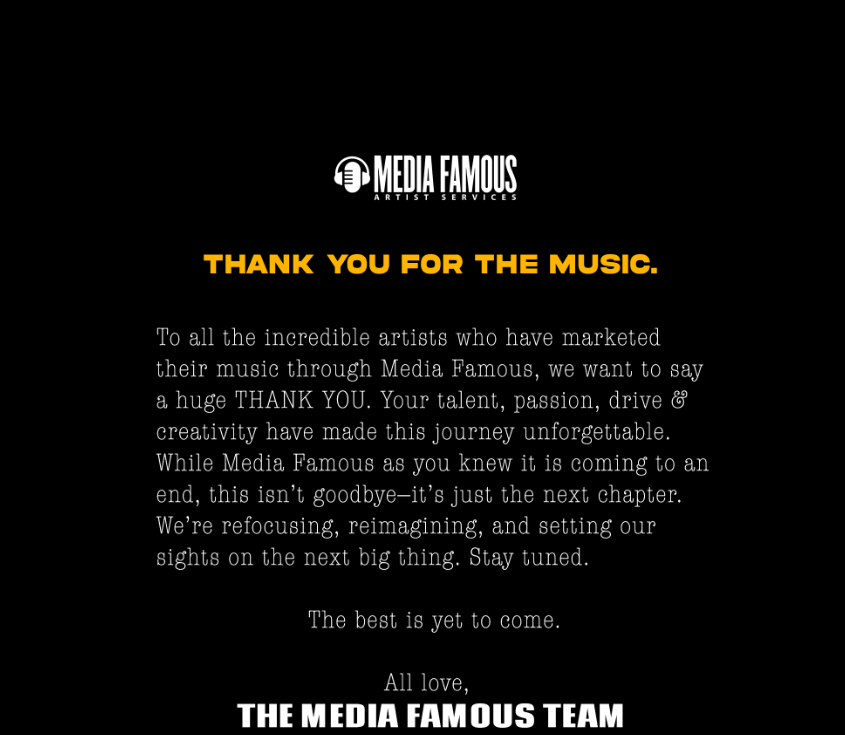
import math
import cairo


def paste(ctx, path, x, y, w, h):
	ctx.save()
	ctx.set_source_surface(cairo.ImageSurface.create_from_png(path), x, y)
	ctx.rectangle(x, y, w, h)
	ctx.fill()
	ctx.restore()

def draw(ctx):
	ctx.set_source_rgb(0, 0, 0)
	ctx.paint()
	paste(ctx, 'media/1.png', 155, 154, 555, 574)


surface = cairo.ImageSurface(cairo.FORMAT_RGB24, 845, 735)
ctx = cairo.Context(surface)
options = cairo.FontOptions()
options.set_hint_metrics(cairo.HINT_METRICS_OFF)
options.set_hint_style(cairo.HINT_STYLE_NONE)
ctx.set_font_options(options)
ctx.set_miter_limit(4)
draw(ctx)
surface.write_to_png('image.png')
